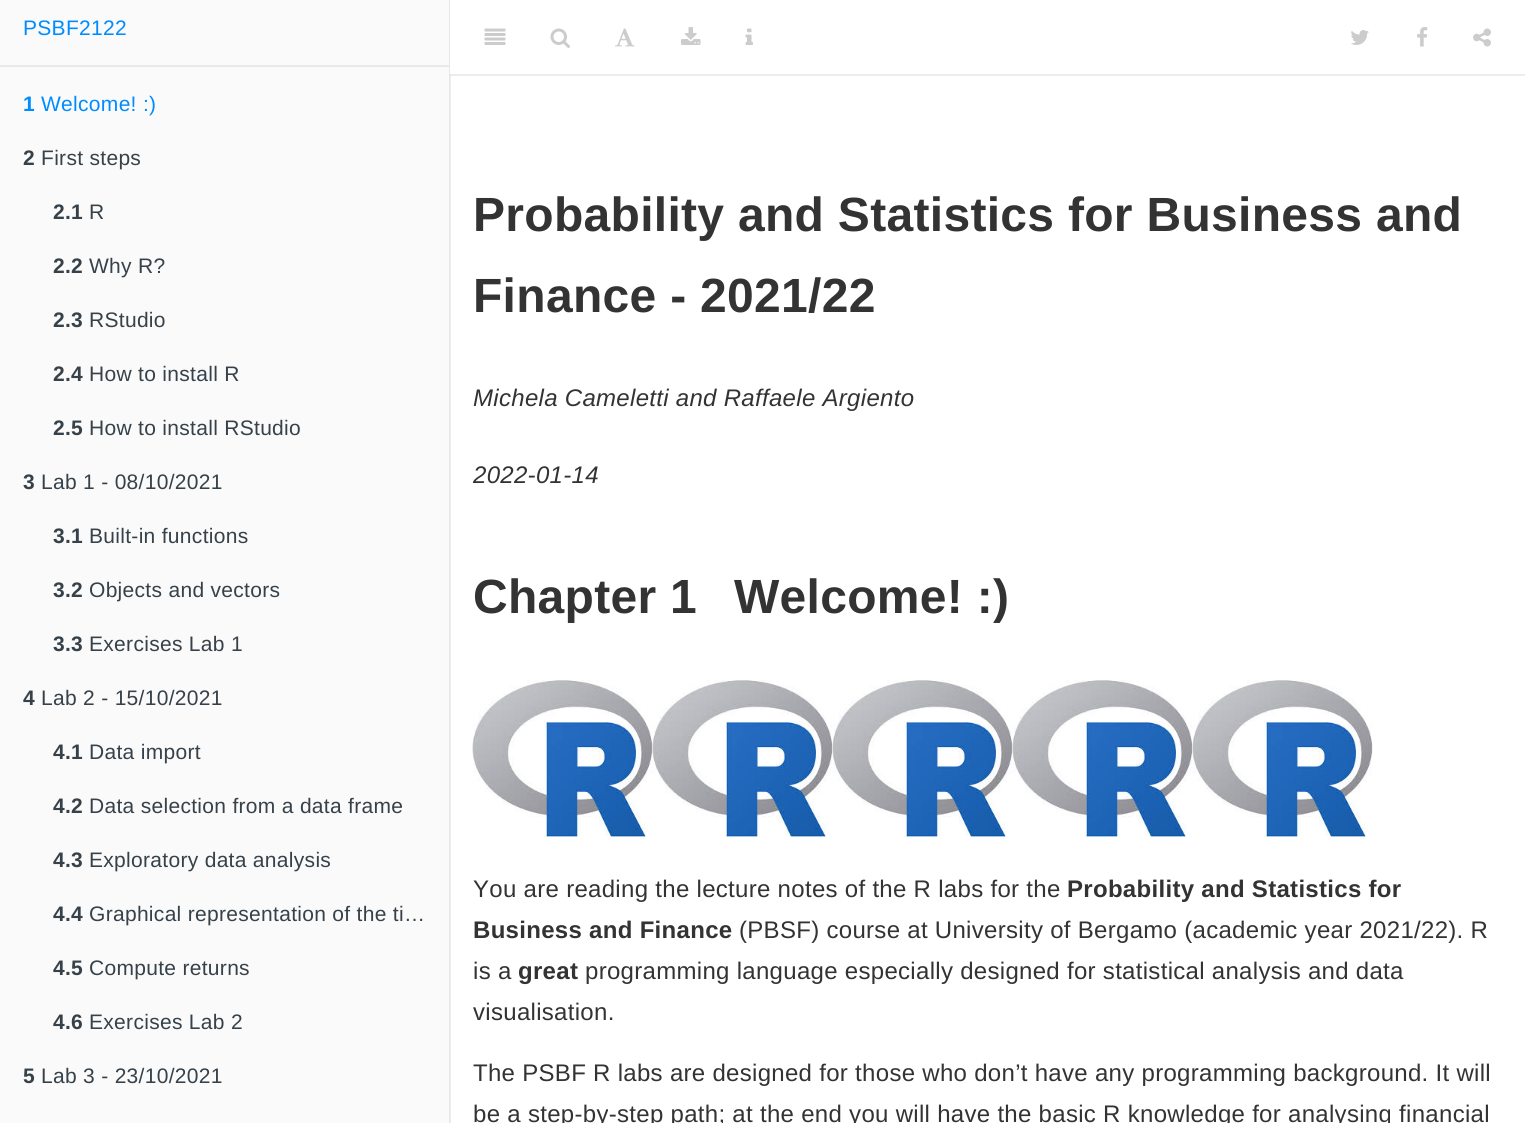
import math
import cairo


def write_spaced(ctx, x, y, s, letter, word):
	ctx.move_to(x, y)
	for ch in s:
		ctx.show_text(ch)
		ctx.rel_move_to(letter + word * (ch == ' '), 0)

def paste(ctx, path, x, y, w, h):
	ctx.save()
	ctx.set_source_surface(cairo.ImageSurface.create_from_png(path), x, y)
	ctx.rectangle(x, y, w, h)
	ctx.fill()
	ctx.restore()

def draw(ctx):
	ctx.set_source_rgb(1, 1, 1)
	ctx.paint()
	ctx.set_source_rgb(0.929, 0.929, 0.929)
	ctx.rectangle(450, 75, 1075, 1)
	ctx.rectangle(450, 76, 1, 1047)
	ctx.fill()
	ctx.set_source_rgb(0.863, 0.863, 0.863)
	ctx.rectangle(450, 74, 1, 2)
	ctx.fill()
	ctx.set_source_rgb(0.98, 0.98, 0.98)
	ctx.rectangle(0, 0, 449, 1123)
	ctx.fill()
	ctx.set_source_rgb(0.91, 0.91, 0.91)
	ctx.rectangle(449, 0, 1, 1123)
	ctx.fill()
	ctx.select_font_face('Liberation Sans')
	ctx.set_font_size(21)
	ctx.set_source_rgb(0, 0.549, 1)
	write_spaced(ctx, 23, 35, 'PSBF2122', 0.3, 0)
	ctx.set_source_rgb(0.914, 0.914, 0.914)
	ctx.rectangle(0, 65, 449, 2)
	ctx.fill()
	ctx.select_font_face('Liberation Sans', cairo.FONT_SLANT_NORMAL, cairo.FONT_WEIGHT_BOLD)
	ctx.set_source_rgb(0, 0.549, 1)
	write_spaced(ctx, 23, 111, '1', 0.3, 0)
	ctx.select_font_face('Liberation Sans')
	write_spaced(ctx, 41, 111, 'Welcome! :)', 0.3, 0)
	ctx.select_font_face('Liberation Sans', cairo.FONT_SLANT_NORMAL, cairo.FONT_WEIGHT_BOLD)
	ctx.set_source_rgb(0.212, 0.255, 0.286)
	write_spaced(ctx, 23, 165, '2', 0.3, 0)
	ctx.select_font_face('Liberation Sans')
	write_spaced(ctx, 41, 165, 'First steps', 0.3, 0)
	ctx.select_font_face('Liberation Sans', cairo.FONT_SLANT_NORMAL, cairo.FONT_WEIGHT_BOLD)
	write_spaced(ctx, 53, 219, '2.1', 0.3, 0)
	ctx.select_font_face('Liberation Sans')
	write_spaced(ctx, 89, 219, 'R', 0.3, 0)
	ctx.select_font_face('Liberation Sans', cairo.FONT_SLANT_NORMAL, cairo.FONT_WEIGHT_BOLD)
	write_spaced(ctx, 53, 273, '2.2', 0.3, 0)
	ctx.select_font_face('Liberation Sans')
	write_spaced(ctx, 89, 273, 'Why R?', 0.3, 0)
	ctx.select_font_face('Liberation Sans', cairo.FONT_SLANT_NORMAL, cairo.FONT_WEIGHT_BOLD)
	write_spaced(ctx, 53, 327, '2.3', 0.3, 0)
	ctx.select_font_face('Liberation Sans')
	write_spaced(ctx, 89, 327, 'RStudio', 0.3, 0)
	ctx.select_font_face('Liberation Sans', cairo.FONT_SLANT_NORMAL, cairo.FONT_WEIGHT_BOLD)
	write_spaced(ctx, 53, 381, '2.4', 0.3, 0)
	ctx.select_font_face('Liberation Sans')
	write_spaced(ctx, 89, 381, 'How to install R', 0.3, 0)
	ctx.select_font_face('Liberation Sans', cairo.FONT_SLANT_NORMAL, cairo.FONT_WEIGHT_BOLD)
	write_spaced(ctx, 53, 435, '2.5', 0.3, 0)
	ctx.select_font_face('Liberation Sans')
	write_spaced(ctx, 89, 435, 'How to install RStudio', 0.3, 0)
	ctx.select_font_face('Liberation Sans', cairo.FONT_SLANT_NORMAL, cairo.FONT_WEIGHT_BOLD)
	write_spaced(ctx, 23, 489, '3', 0.3, 0)
	ctx.select_font_face('Liberation Sans')
	write_spaced(ctx, 41, 489, 'Lab 1 - 08/10/2021', 0.3, 0)
	ctx.select_font_face('Liberation Sans', cairo.FONT_SLANT_NORMAL, cairo.FONT_WEIGHT_BOLD)
	write_spaced(ctx, 53, 543, '3.1', 0.3, 0)
	ctx.select_font_face('Liberation Sans')
	write_spaced(ctx, 89, 543, 'Built-in functions', 0.3, 0)
	ctx.select_font_face('Liberation Sans', cairo.FONT_SLANT_NORMAL, cairo.FONT_WEIGHT_BOLD)
	write_spaced(ctx, 53, 597, '3.2', 0.3, 0)
	ctx.select_font_face('Liberation Sans')
	write_spaced(ctx, 89, 597, 'Objects and vectors', 0.3, 0)
	ctx.select_font_face('Liberation Sans', cairo.FONT_SLANT_NORMAL, cairo.FONT_WEIGHT_BOLD)
	write_spaced(ctx, 53, 651, '3.3', 0.3, 0)
	ctx.select_font_face('Liberation Sans')
	write_spaced(ctx, 89, 651, 'Exercises Lab 1', 0.3, 0)
	ctx.select_font_face('Liberation Sans', cairo.FONT_SLANT_NORMAL, cairo.FONT_WEIGHT_BOLD)
	write_spaced(ctx, 23, 705, '4', 0.3, 0)
	ctx.select_font_face('Liberation Sans')
	write_spaced(ctx, 41, 705, 'Lab 2 - 15/10/2021', 0.3, 0)
	ctx.select_font_face('Liberation Sans', cairo.FONT_SLANT_NORMAL, cairo.FONT_WEIGHT_BOLD)
	write_spaced(ctx, 53, 759, '4.1', 0.3, 0)
	ctx.select_font_face('Liberation Sans')
	write_spaced(ctx, 89, 759, 'Data import', 0.3, 0)
	ctx.select_font_face('Liberation Sans', cairo.FONT_SLANT_NORMAL, cairo.FONT_WEIGHT_BOLD)
	write_spaced(ctx, 53, 813, '4.2', 0.3, 0)
	ctx.select_font_face('Liberation Sans')
	write_spaced(ctx, 89, 813, 'Data selection from a data frame', 0.3, 0)
	ctx.select_font_face('Liberation Sans', cairo.FONT_SLANT_NORMAL, cairo.FONT_WEIGHT_BOLD)
	write_spaced(ctx, 53, 867, '4.3', 0.3, 0)
	ctx.select_font_face('Liberation Sans')
	write_spaced(ctx, 89, 867, 'Exploratory data analysis', 0.3, 0)
	ctx.select_font_face('Liberation Sans', cairo.FONT_SLANT_NORMAL, cairo.FONT_WEIGHT_BOLD)
	write_spaced(ctx, 53, 921, '4.4', 0.3, 0)
	ctx.select_font_face('Liberation Sans')
	write_spaced(ctx, 89, 921, 'Graphical representation of the ti…', 0.3, 0)
	ctx.select_font_face('Liberation Sans', cairo.FONT_SLANT_NORMAL, cairo.FONT_WEIGHT_BOLD)
	write_spaced(ctx, 53, 975, '4.5', 0.3, 0)
	ctx.select_font_face('Liberation Sans')
	write_spaced(ctx, 89, 975, 'Compute returns', 0.3, 0)
	ctx.select_font_face('Liberation Sans', cairo.FONT_SLANT_NORMAL, cairo.FONT_WEIGHT_BOLD)
	write_spaced(ctx, 53, 1029, '4.6', 0.3, 0)
	ctx.select_font_face('Liberation Sans')
	write_spaced(ctx, 89, 1029, 'Exercises Lab 2', 0.3, 0)
	ctx.select_font_face('Liberation Sans', cairo.FONT_SLANT_NORMAL, cairo.FONT_WEIGHT_BOLD)
	write_spaced(ctx, 23, 1083, '5', 0.3, 0)
	ctx.select_font_face('Liberation Sans')
	write_spaced(ctx, 41, 1083, 'Lab 3 - 23/10/2021', 0.3, 0)
	ctx.set_source_rgb(0.929, 0.929, 0.929)
	ctx.rectangle(450, 74, 1075, 1)
	ctx.fill()
	paste(ctx, 'media/1.png', 484, 28, 22, 17)
	paste(ctx, 'media/2.png', 550, 28, 20, 20)
	paste(ctx, 'media/3.png', 615, 28, 20, 19)
	paste(ctx, 'media/4.png', 681, 27, 20, 18)
	paste(ctx, 'media/5.png', 745, 28, 8, 17)
	paste(ctx, 'media/6.png', 1351, 30, 18, 15)
	paste(ctx, 'media/7.png', 1417, 27, 11, 20)
	paste(ctx, 'media/8.png', 1473, 28, 18, 19)
	ctx.select_font_face('Liberation Sans', cairo.FONT_SLANT_NORMAL, cairo.FONT_WEIGHT_BOLD)
	ctx.set_font_size(48)
	ctx.set_source_rgb(0.2, 0.2, 0.2)
	write_spaced(ctx, 473, 231, 'Probability and Statistics for Business and', 0.3, 0)
	write_spaced(ctx, 473, 312, 'Finance - 2021/22', 0.3, 0)
	ctx.select_font_face('Liberation Sans', cairo.FONT_SLANT_ITALIC)
	ctx.set_font_size(24)
	write_spaced(ctx, 473, 406, 'Michela Cameletti and Raffaele Argiento', 0.3, 0)
	write_spaced(ctx, 473, 483, '2022-01-14', 0.3, 0)
	ctx.select_font_face('Liberation Sans', cairo.FONT_SLANT_NORMAL, cairo.FONT_WEIGHT_BOLD)
	ctx.set_font_size(48)
	write_spaced(ctx, 473, 613, 'Chapter 1', 0.3, 0)
	write_spaced(ctx, 734, 613, 'Welcome! :)', 0.3, 0)
	paste(ctx, 'media/9.png', 472, 679, 181, 158)
	paste(ctx, 'media/10.png', 652, 679, 181, 158)
	paste(ctx, 'media/11.png', 832, 679, 181, 158)
	paste(ctx, 'media/11.png', 1012, 679, 181, 158)
	paste(ctx, 'media/12.png', 1192, 679, 181, 158)
	ctx.select_font_face('Liberation Sans')
	ctx.set_font_size(24)
	write_spaced(ctx, 473, 897, 'You are reading the lecture notes of the R labs for the', 0.3, 0)
	ctx.select_font_face('Liberation Sans', cairo.FONT_SLANT_NORMAL, cairo.FONT_WEIGHT_BOLD)
	write_spaced(ctx, 1067, 897, 'Probability and Statistics for', 0.3, 0)
	write_spaced(ctx, 473, 938, 'Business and Finance', 0.3, 0)
	ctx.select_font_face('Liberation Sans')
	write_spaced(ctx, 739, 938, '(PBSF) course at University of Bergamo (academic year 2021/22). R', 0.3, 0)
	write_spaced(ctx, 473, 979, 'is a', 0.3, 0)
	ctx.select_font_face('Liberation Sans', cairo.FONT_SLANT_NORMAL, cairo.FONT_WEIGHT_BOLD)
	write_spaced(ctx, 518, 979, 'great', 0.3, 0)
	ctx.select_font_face('Liberation Sans')
	for x, y, s in [
		(585, 979, 'programming language especially designed for statistical analysis and data'),
		(473, 1020, 'visualisation.'),
		(473, 1081, 'The PSBF R labs are designed for those who don’t have any programming background. It will'),
		(473, 1122, 'be a step-by-step path; at the end you will have the basic R knowledge for analysing financial'),
	]:
		write_spaced(ctx, x, y, s, 0.3, 0)


surface = cairo.ImageSurface(cairo.FORMAT_RGB24, 1525, 1123)
ctx = cairo.Context(surface)
options = cairo.FontOptions()
options.set_hint_metrics(cairo.HINT_METRICS_OFF)
options.set_hint_style(cairo.HINT_STYLE_NONE)
ctx.set_font_options(options)
ctx.set_miter_limit(4)
draw(ctx)
surface.write_to_png('image.png')
